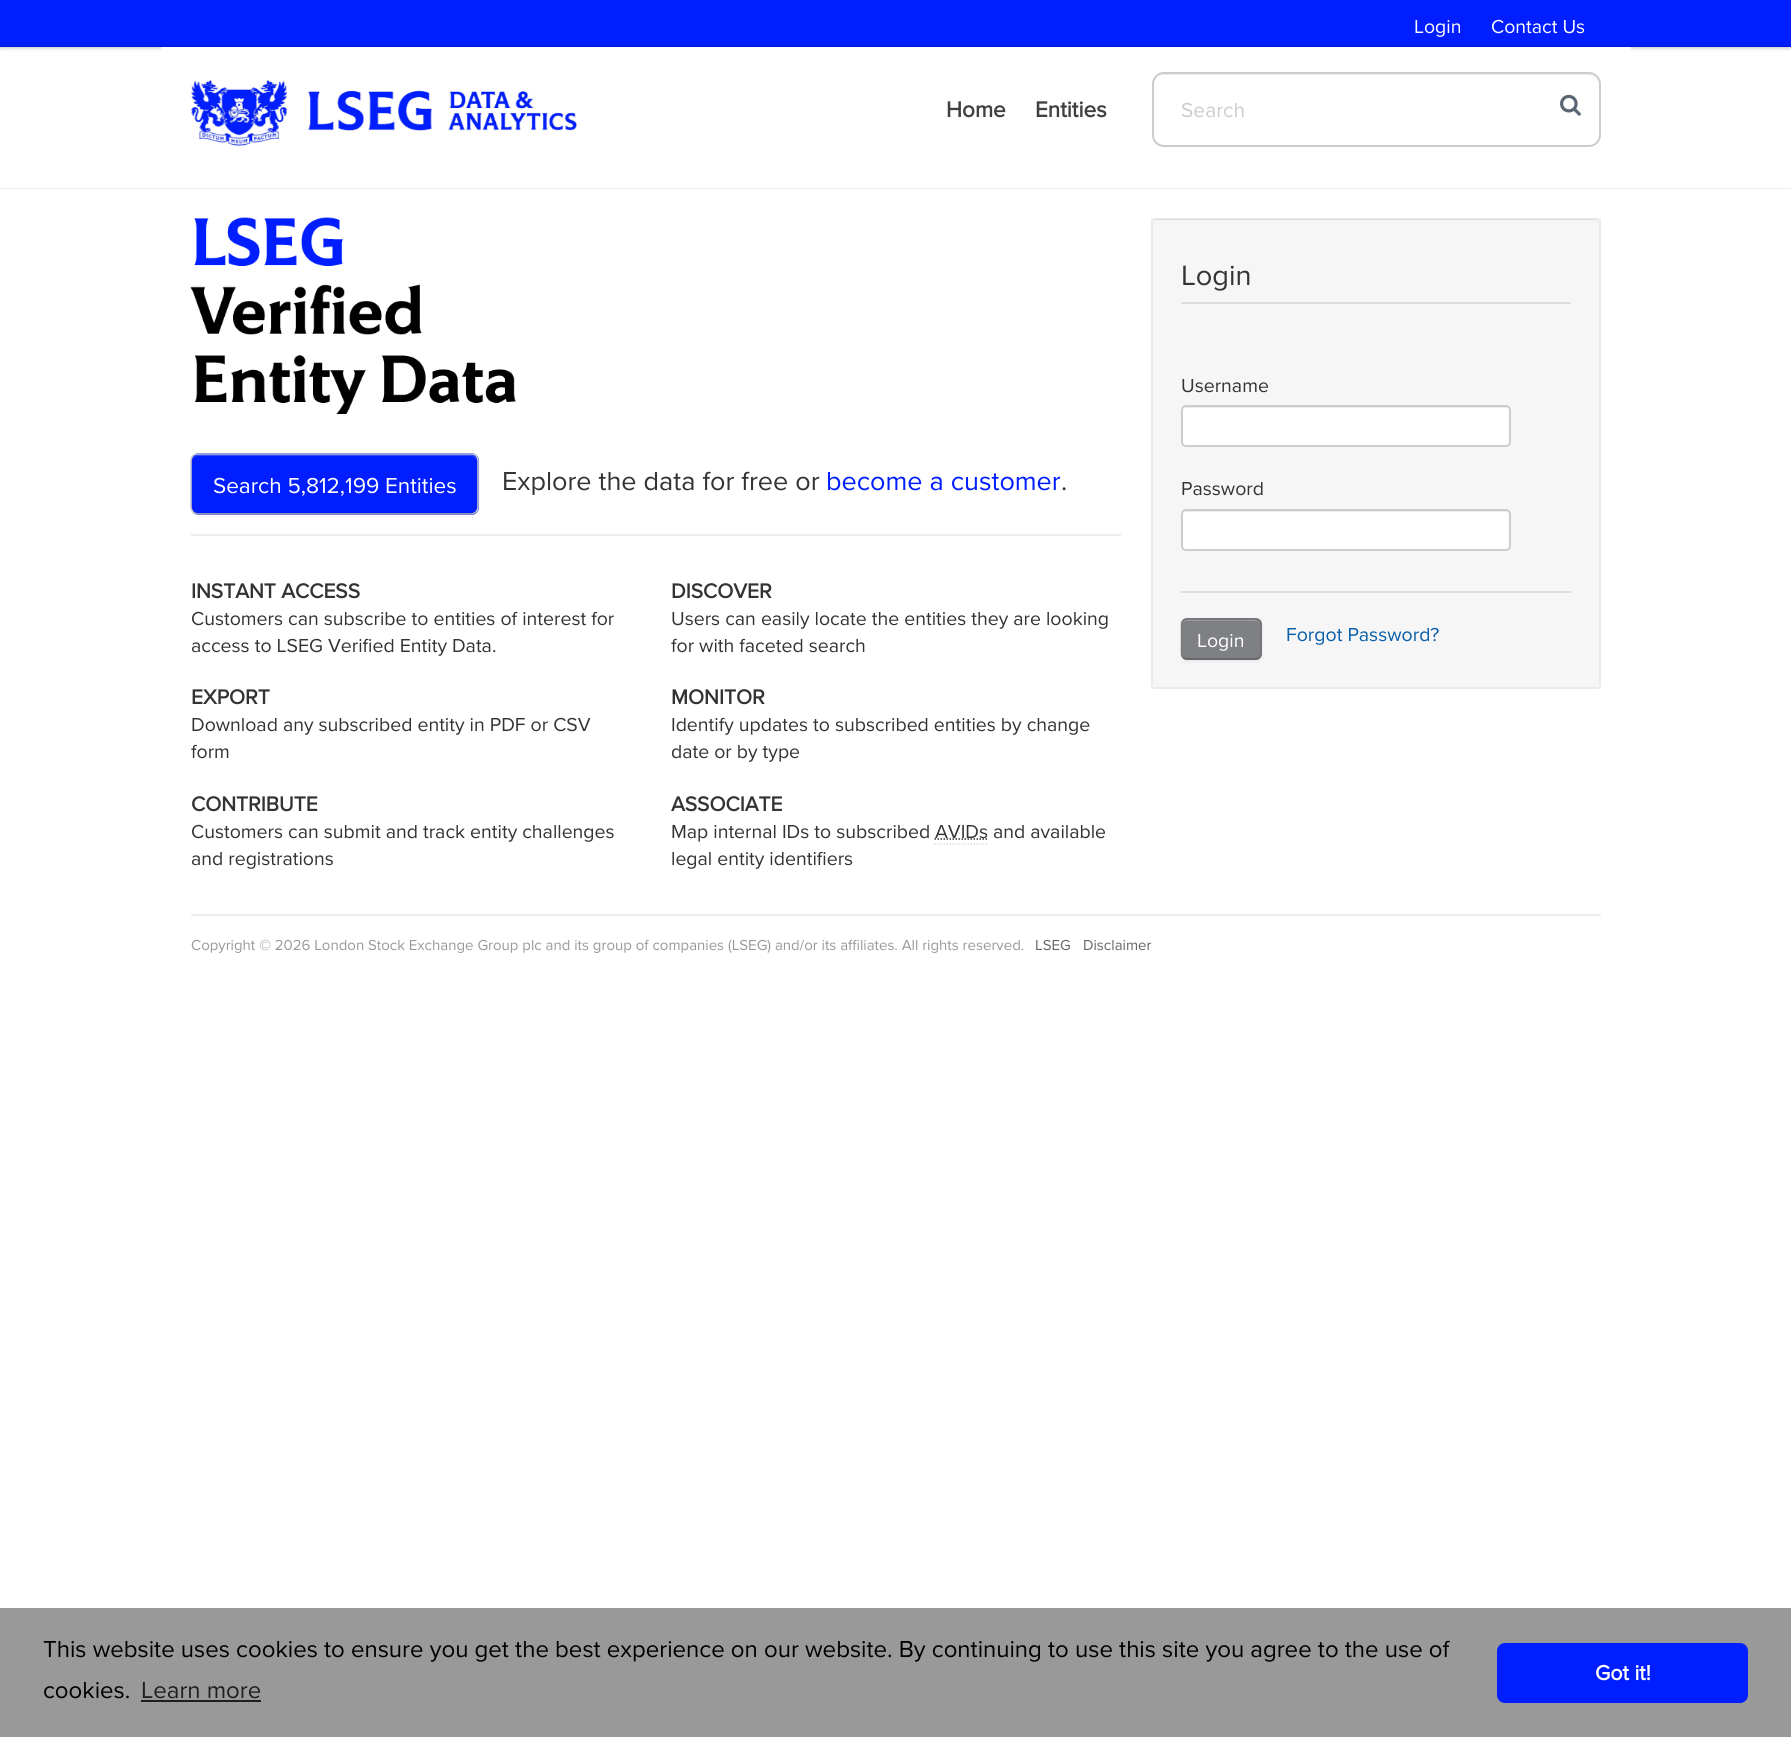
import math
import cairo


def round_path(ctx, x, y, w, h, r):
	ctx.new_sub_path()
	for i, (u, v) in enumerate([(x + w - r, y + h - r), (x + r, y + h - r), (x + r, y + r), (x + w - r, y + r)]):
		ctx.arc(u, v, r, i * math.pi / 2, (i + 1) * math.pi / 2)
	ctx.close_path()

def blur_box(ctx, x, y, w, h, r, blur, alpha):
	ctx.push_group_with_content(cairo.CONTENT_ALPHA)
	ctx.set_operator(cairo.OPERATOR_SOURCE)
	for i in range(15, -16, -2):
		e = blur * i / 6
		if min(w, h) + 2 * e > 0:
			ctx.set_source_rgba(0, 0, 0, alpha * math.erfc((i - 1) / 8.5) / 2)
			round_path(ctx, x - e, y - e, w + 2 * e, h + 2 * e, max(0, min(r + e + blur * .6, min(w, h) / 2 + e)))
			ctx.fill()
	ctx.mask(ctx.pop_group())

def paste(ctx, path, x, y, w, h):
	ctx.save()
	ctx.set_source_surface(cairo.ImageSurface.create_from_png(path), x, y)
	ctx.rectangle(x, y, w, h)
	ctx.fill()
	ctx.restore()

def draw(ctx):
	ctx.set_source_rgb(1, 1, 1)
	ctx.paint()
	ctx.set_source_rgb(0, 0, 0)
	blur_box(ctx, 0, 2, 1791, 46, 0, 2, 0.25)
	ctx.set_source_rgb(0, 0.118, 1)
	ctx.rectangle(0, 0, 1791, 45)
	ctx.fill()
	ctx.set_source_rgb(0, 0.106, 0.902)
	ctx.rectangle(0, 45, 1791, 2)
	ctx.fill()
	ctx.select_font_face('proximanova')
	ctx.set_font_size(19.5)
	ctx.set_source_rgb(1, 1, 1)
	ctx.move_to(1414, 33)
	ctx.show_text('Login')
	ctx.move_to(1491, 33)
	ctx.show_text('Contact Us')
	ctx.rectangle(161, 47, 1470, 4)
	ctx.fill()
	paste(ctx, 'media/1.png', 191, 80, 387, 66)
	ctx.select_font_face('proximanova', cairo.FONT_SLANT_NORMAL, cairo.FONT_WEIGHT_BOLD)
	ctx.set_font_size(22.5)
	ctx.set_source_rgb(0.251, 0.251, 0.251)
	ctx.move_to(946, 117)
	ctx.show_text('Home')
	ctx.move_to(1035, 117)
	ctx.show_text('Entities')
	ctx.set_source_rgb(0.925, 0.925, 0.925)
	ctx.new_path()
	ctx.move_to(1164, 75)
	ctx.line_to(1588, 75)
	ctx.curve_to(1594, 75, 1599, 80, 1599, 86)
	ctx.line_to(1599, 85)
	ctx.curve_to(1599, 79, 1594, 74, 1588, 74)
	ctx.line_to(1165, 74)
	ctx.curve_to(1159, 74, 1154, 79, 1154, 85)
	ctx.line_to(1154, 86)
	ctx.curve_to(1154, 80, 1158, 75, 1164, 75)
	ctx.close_path()
	ctx.fill()
	round_path(ctx, 1153, 73, 447, 73, 11)
	ctx.set_source_rgb(0.8, 0.8, 0.8)
	ctx.stroke()
	ctx.select_font_face('proximanova')
	ctx.set_font_size(21)
	ctx.move_to(1181, 117)
	ctx.show_text('Search')
	paste(ctx, 'media/2.png', 1560, 94, 21, 22)
	ctx.set_source_rgb(0.933, 0.933, 0.933)
	ctx.rectangle(0, 188, 1791, 1)
	ctx.fill()
	paste(ctx, 'media/3.png', 190, 217, 326, 197)
	ctx.set_source_rgb(0, 0, 0)
	blur_box(ctx, 191, 455, 288, 61, 8, 1.5, 0.05)
	ctx.set_source_rgb(0, 0.118, 1)
	round_path(ctx, 191, 453, 288, 62, 8)
	ctx.fill()
	ctx.set_source_rgb(0.2, 0.294, 1)
	ctx.new_path()
	ctx.move_to(198, 456)
	ctx.line_to(471, 456)
	ctx.curve_to(474, 456, 477, 459, 477, 462)
	ctx.line_to(477, 461)
	ctx.curve_to(477, 458, 474, 455, 471, 455)
	ctx.line_to(198, 455)
	ctx.curve_to(195, 455, 192, 458, 192, 461)
	ctx.line_to(192, 462)
	ctx.curve_to(192, 459, 195, 456, 198, 456)
	ctx.close_path()
	ctx.fill()
	ctx.new_path()
	ctx.move_to(476, 512)
	ctx.curve_to(474.5, 513, 473, 514, 471, 514)
	ctx.line_to(198, 514)
	ctx.curve_to(196, 514, 194.5, 513, 193, 512)
	ctx.set_source_rgb(0.702, 0.702, 0.702)
	ctx.set_line_width(1.5)
	ctx.stroke()
	ctx.new_path()
	ctx.move_to(193, 512)
	ctx.curve_to(192, 510.5, 191, 509, 191, 507)
	ctx.line_to(191, 460.5)
	ctx.curve_to(191, 458.5, 192, 457, 193, 455.5)
	ctx.curve_to(194.5, 454.5, 196, 454, 198, 454)
	ctx.line_to(471, 454)
	ctx.curve_to(473, 454, 474.5, 454.5, 476, 455.5)
	ctx.curve_to(477, 457, 478, 458.5, 478, 460.5)
	ctx.line_to(478, 507)
	ctx.curve_to(478, 509, 477, 510.5, 476, 512)
	ctx.set_source_rgb(0.8, 0.8, 0.8)
	ctx.stroke()
	ctx.set_font_size(22.5)
	ctx.set_source_rgb(1, 1, 1)
	ctx.move_to(213, 493)
	ctx.show_text('Search 5,812,199 Entities')
	ctx.set_font_size(27)
	ctx.set_source_rgb(0.2, 0.2, 0.2)
	ctx.move_to(502, 490)
	ctx.show_text('Explore the data for free or')
	ctx.set_source_rgb(0, 0.118, 1)
	ctx.move_to(826, 490)
	ctx.show_text('become a customer')
	ctx.set_source_rgb(0.2, 0.2, 0.2)
	ctx.move_to(1061, 490)
	ctx.show_text('.')
	ctx.set_source_rgb(0.933, 0.933, 0.933)
	ctx.rectangle(191, 534, 930, 2)
	ctx.fill()
	ctx.select_font_face('proximanova', cairo.FONT_SLANT_NORMAL, cairo.FONT_WEIGHT_BOLD)
	ctx.set_font_size(21)
	ctx.set_source_rgb(0.2, 0.2, 0.2)
	ctx.move_to(191, 598)
	ctx.show_text('INSTANT ACCESS')
	ctx.select_font_face('proximanova')
	ctx.set_font_size(19.5)
	ctx.move_to(191, 625)
	ctx.show_text('Customers can subscribe to entities of interest for')
	ctx.move_to(191, 652)
	ctx.show_text('access to LSEG Verified Entity Data.')
	ctx.select_font_face('proximanova', cairo.FONT_SLANT_NORMAL, cairo.FONT_WEIGHT_BOLD)
	ctx.set_font_size(21)
	ctx.move_to(671, 598)
	ctx.show_text('DISCOVER')
	ctx.select_font_face('proximanova')
	ctx.set_font_size(19.5)
	ctx.move_to(671, 625)
	ctx.show_text('Users can easily locate the entities they are looking')
	ctx.move_to(671, 652)
	ctx.show_text('for with faceted search')
	ctx.select_font_face('proximanova', cairo.FONT_SLANT_NORMAL, cairo.FONT_WEIGHT_BOLD)
	ctx.set_font_size(21)
	ctx.move_to(191, 704)
	ctx.show_text('EXPORT')
	ctx.select_font_face('proximanova')
	ctx.set_font_size(19.5)
	ctx.move_to(191, 731)
	ctx.show_text('Download any subscribed entity in PDF or CSV')
	ctx.move_to(191, 758)
	ctx.show_text('form')
	ctx.select_font_face('proximanova', cairo.FONT_SLANT_NORMAL, cairo.FONT_WEIGHT_BOLD)
	ctx.set_font_size(21)
	ctx.move_to(671, 704)
	ctx.show_text('MONITOR')
	ctx.select_font_face('proximanova')
	ctx.set_font_size(19.5)
	ctx.move_to(671, 731)
	ctx.show_text('Identify updates to subscribed entities by change')
	ctx.move_to(671, 758)
	ctx.show_text('date or by type')
	ctx.select_font_face('proximanova', cairo.FONT_SLANT_NORMAL, cairo.FONT_WEIGHT_BOLD)
	ctx.set_font_size(21)
	ctx.move_to(191, 811)
	ctx.show_text('CONTRIBUTE')
	ctx.select_font_face('proximanova')
	ctx.set_font_size(19.5)
	ctx.move_to(191, 838)
	ctx.show_text('Customers can submit and track entity challenges')
	ctx.move_to(191, 865)
	ctx.show_text('and registrations')
	ctx.select_font_face('proximanova', cairo.FONT_SLANT_NORMAL, cairo.FONT_WEIGHT_BOLD)
	ctx.set_font_size(21)
	ctx.move_to(671, 811)
	ctx.show_text('ASSOCIATE')
	ctx.select_font_face('proximanova')
	ctx.set_font_size(19.5)
	ctx.move_to(671, 838)
	ctx.show_text('Map internal IDs to subscribed')
	ctx.new_path()
	ctx.move_to(934.5, 839)
	ctx.line_to(987.5, 839)
	ctx.set_dash([1.5, 1.5])
	ctx.stroke()
	ctx.move_to(935, 838)
	ctx.show_text('AVIDs and available')
	ctx.new_path()
	ctx.move_to(934.5, 844)
	ctx.line_to(987, 844)
	ctx.set_source_rgb(0.867, 0.867, 0.867)
	ctx.stroke()
	ctx.set_source_rgb(0.2, 0.2, 0.2)
	ctx.move_to(671, 865)
	ctx.show_text('legal entity identifiers')
	ctx.set_source_rgb(0.961, 0.961, 0.961)
	round_path(ctx, 1151, 218, 450, 471, 6)
	ctx.fill()
	ctx.set_source_rgb(0.914, 0.914, 0.914)
	ctx.new_path()
	ctx.move_to(1156, 220)
	ctx.line_to(1594, 220)
	ctx.curve_to(1597, 220, 1599, 223, 1599, 225)
	ctx.curve_to(1599, 222, 1597, 219, 1594, 219)
	ctx.line_to(1157, 219)
	ctx.curve_to(1154, 219, 1152, 222, 1152, 225)
	ctx.curve_to(1152, 223, 1154, 220, 1156, 220)
	ctx.close_path()
	ctx.fill()
	ctx.rectangle(1152, 219, 448, 469)
	ctx.set_source_rgba(0, 0, 0, 0.05)
	ctx.set_line_width(2)
	ctx.set_dash([])
	ctx.stroke()
	ctx.set_source_rgb(0.867, 0.867, 0.867)
	ctx.rectangle(1181, 302, 390, 2)
	ctx.fill()
	ctx.set_font_size(29)
	ctx.set_source_rgb(0.2, 0.2, 0.2)
	ctx.move_to(1181, 285)
	ctx.show_text('Login')
	ctx.set_font_size(19.5)
	ctx.move_to(1181, 392)
	ctx.show_text('Username')
	ctx.set_source_rgb(1, 1, 1)
	round_path(ctx, 1181, 405, 330, 42, 5)
	ctx.fill()
	ctx.set_source_rgb(0.925, 0.925, 0.925)
	ctx.new_path()
	ctx.move_to(1185, 408)
	ctx.line_to(1506, 408)
	ctx.curve_to(1508, 408, 1509, 409, 1509, 411)
	ctx.curve_to(1509, 409, 1508, 407, 1506, 407)
	ctx.line_to(1185, 407)
	ctx.curve_to(1183, 407, 1182, 409, 1182, 411)
	ctx.curve_to(1182, 409, 1183, 408, 1185, 408)
	ctx.close_path()
	ctx.fill()
	round_path(ctx, 1182, 406, 328, 40, 4)
	ctx.set_source_rgb(0.8, 0.8, 0.8)
	ctx.stroke()
	ctx.set_source_rgb(0.2, 0.2, 0.2)
	ctx.move_to(1181, 495)
	ctx.show_text('Password')
	ctx.set_source_rgb(1, 1, 1)
	round_path(ctx, 1181, 509, 330, 42, 5)
	ctx.fill()
	ctx.set_source_rgb(0.925, 0.925, 0.925)
	ctx.new_path()
	ctx.move_to(1185, 512)
	ctx.line_to(1506, 512)
	ctx.curve_to(1508, 512, 1509, 513, 1509, 514)
	ctx.curve_to(1509, 512, 1508, 510, 1506, 510)
	ctx.line_to(1185, 510)
	ctx.curve_to(1183, 510, 1182, 512, 1182, 514)
	ctx.curve_to(1182, 513, 1183, 512, 1185, 512)
	ctx.close_path()
	ctx.fill()
	round_path(ctx, 1182, 510, 328, 40, 4)
	ctx.set_source_rgb(0.8, 0.8, 0.8)
	ctx.stroke()
	ctx.set_source_rgb(0.867, 0.867, 0.867)
	ctx.rectangle(1181, 591, 390, 2)
	ctx.fill()
	ctx.set_source_rgb(0, 0, 0)
	blur_box(ctx, 1181, 620, 81, 42, 6, 1.5, 0.05)
	ctx.set_source_rgb(0.494, 0.502, 0.514)
	round_path(ctx, 1181, 618, 81, 42, 6)
	ctx.fill()
	ctx.set_source_rgb(0.596, 0.6, 0.612)
	ctx.new_path()
	ctx.move_to(1186, 621)
	ctx.line_to(1256, 621)
	ctx.curve_to(1258, 621, 1260, 623, 1260, 626)
	ctx.curve_to(1260, 617, 1249, 620, 1244, 620)
	ctx.line_to(1198, 620)
	ctx.curve_to(1193, 620, 1182, 617, 1182, 626)
	ctx.curve_to(1182, 623, 1184, 621, 1186, 621)
	ctx.close_path()
	ctx.fill()
	ctx.new_path()
	ctx.move_to(1259, 657.5)
	ctx.curve_to(1258, 658.5, 1257, 659, 1255.5, 659)
	ctx.line_to(1186.5, 659)
	ctx.curve_to(1185, 659, 1184, 658.5, 1183, 657.5)
	ctx.set_source_rgba(0, 0, 0, 0.25)
	ctx.set_line_width(1.5)
	ctx.stroke()
	ctx.new_path()
	ctx.move_to(1183, 657.5)
	ctx.curve_to(1180.5, 655.5, 1181, 652, 1181, 649)
	ctx.line_to(1181, 639)
	ctx.curve_to(1181, 618.5, 1177.5, 619, 1198, 619)
	ctx.line_to(1244, 619)
	ctx.curve_to(1264.5, 619, 1261, 618.5, 1261, 639)
	ctx.line_to(1261, 649)
	ctx.curve_to(1261, 652, 1261.5, 655.5, 1259, 657.5)
	ctx.set_source_rgba(0, 0, 0, 0.1)
	ctx.stroke()
	ctx.set_source_rgb(1, 1, 1)
	ctx.move_to(1197, 647)
	ctx.show_text('Login')
	ctx.set_source_rgb(0.031, 0.365, 0.663)
	ctx.move_to(1286, 641)
	ctx.show_text('Forgot Password?')
	ctx.set_source_rgb(0.933, 0.933, 0.933)
	ctx.rectangle(191, 914, 1410, 2)
	ctx.fill()
	ctx.set_font_size(15)
	ctx.set_source_rgb(0.6, 0.6, 0.6)
	ctx.move_to(191, 950)
	ctx.show_text('Copyright © 2026 London Stock Exchange Group plc and its group of companies (LSEG) and/or its affiliates. All rights reserved.')
	ctx.set_source_rgb(0.4, 0.4, 0.4)
	ctx.move_to(1035, 950)
	ctx.show_text('LSEG')
	ctx.move_to(1083, 950)
	ctx.show_text('Disclaimer')
	ctx.set_source_rgb(0.6, 0.6, 0.6)
	ctx.rectangle(0, 1608, 1791, 129)
	ctx.fill()
	ctx.set_font_size(24)
	ctx.set_source_rgb(0, 0, 0)
	ctx.move_to(43, 1657)
	ctx.show_text('This website uses cookies to ensure you get the best experience on our website. By continuing to use this site you agree to the use of')
	ctx.move_to(43, 1698)
	ctx.show_text('cookies.')
	ctx.set_source_rgb(0.122, 0.122, 0.122)
	ctx.move_to(141, 1698)
	ctx.show_text('Learn more')
	ctx.rectangle(141, 1700, 120, 2)
	ctx.fill()
	ctx.set_source_rgb(0, 0.118, 1)
	round_path(ctx, 1497, 1643, 251, 60, 8)
	ctx.fill()
	ctx.select_font_face('proximanova', cairo.FONT_SLANT_NORMAL, cairo.FONT_WEIGHT_BOLD)
	ctx.set_font_size(21.5)
	ctx.set_source_rgb(1, 1, 1)
	ctx.move_to(1595, 1680)
	ctx.show_text('Got it!')


surface = cairo.ImageSurface(cairo.FORMAT_RGB24, 1791, 1737)
ctx = cairo.Context(surface)
options = cairo.FontOptions()
options.set_hint_metrics(cairo.HINT_METRICS_OFF)
options.set_hint_style(cairo.HINT_STYLE_NONE)
ctx.set_font_options(options)
ctx.set_miter_limit(4)
draw(ctx)
surface.write_to_png('image.png')
